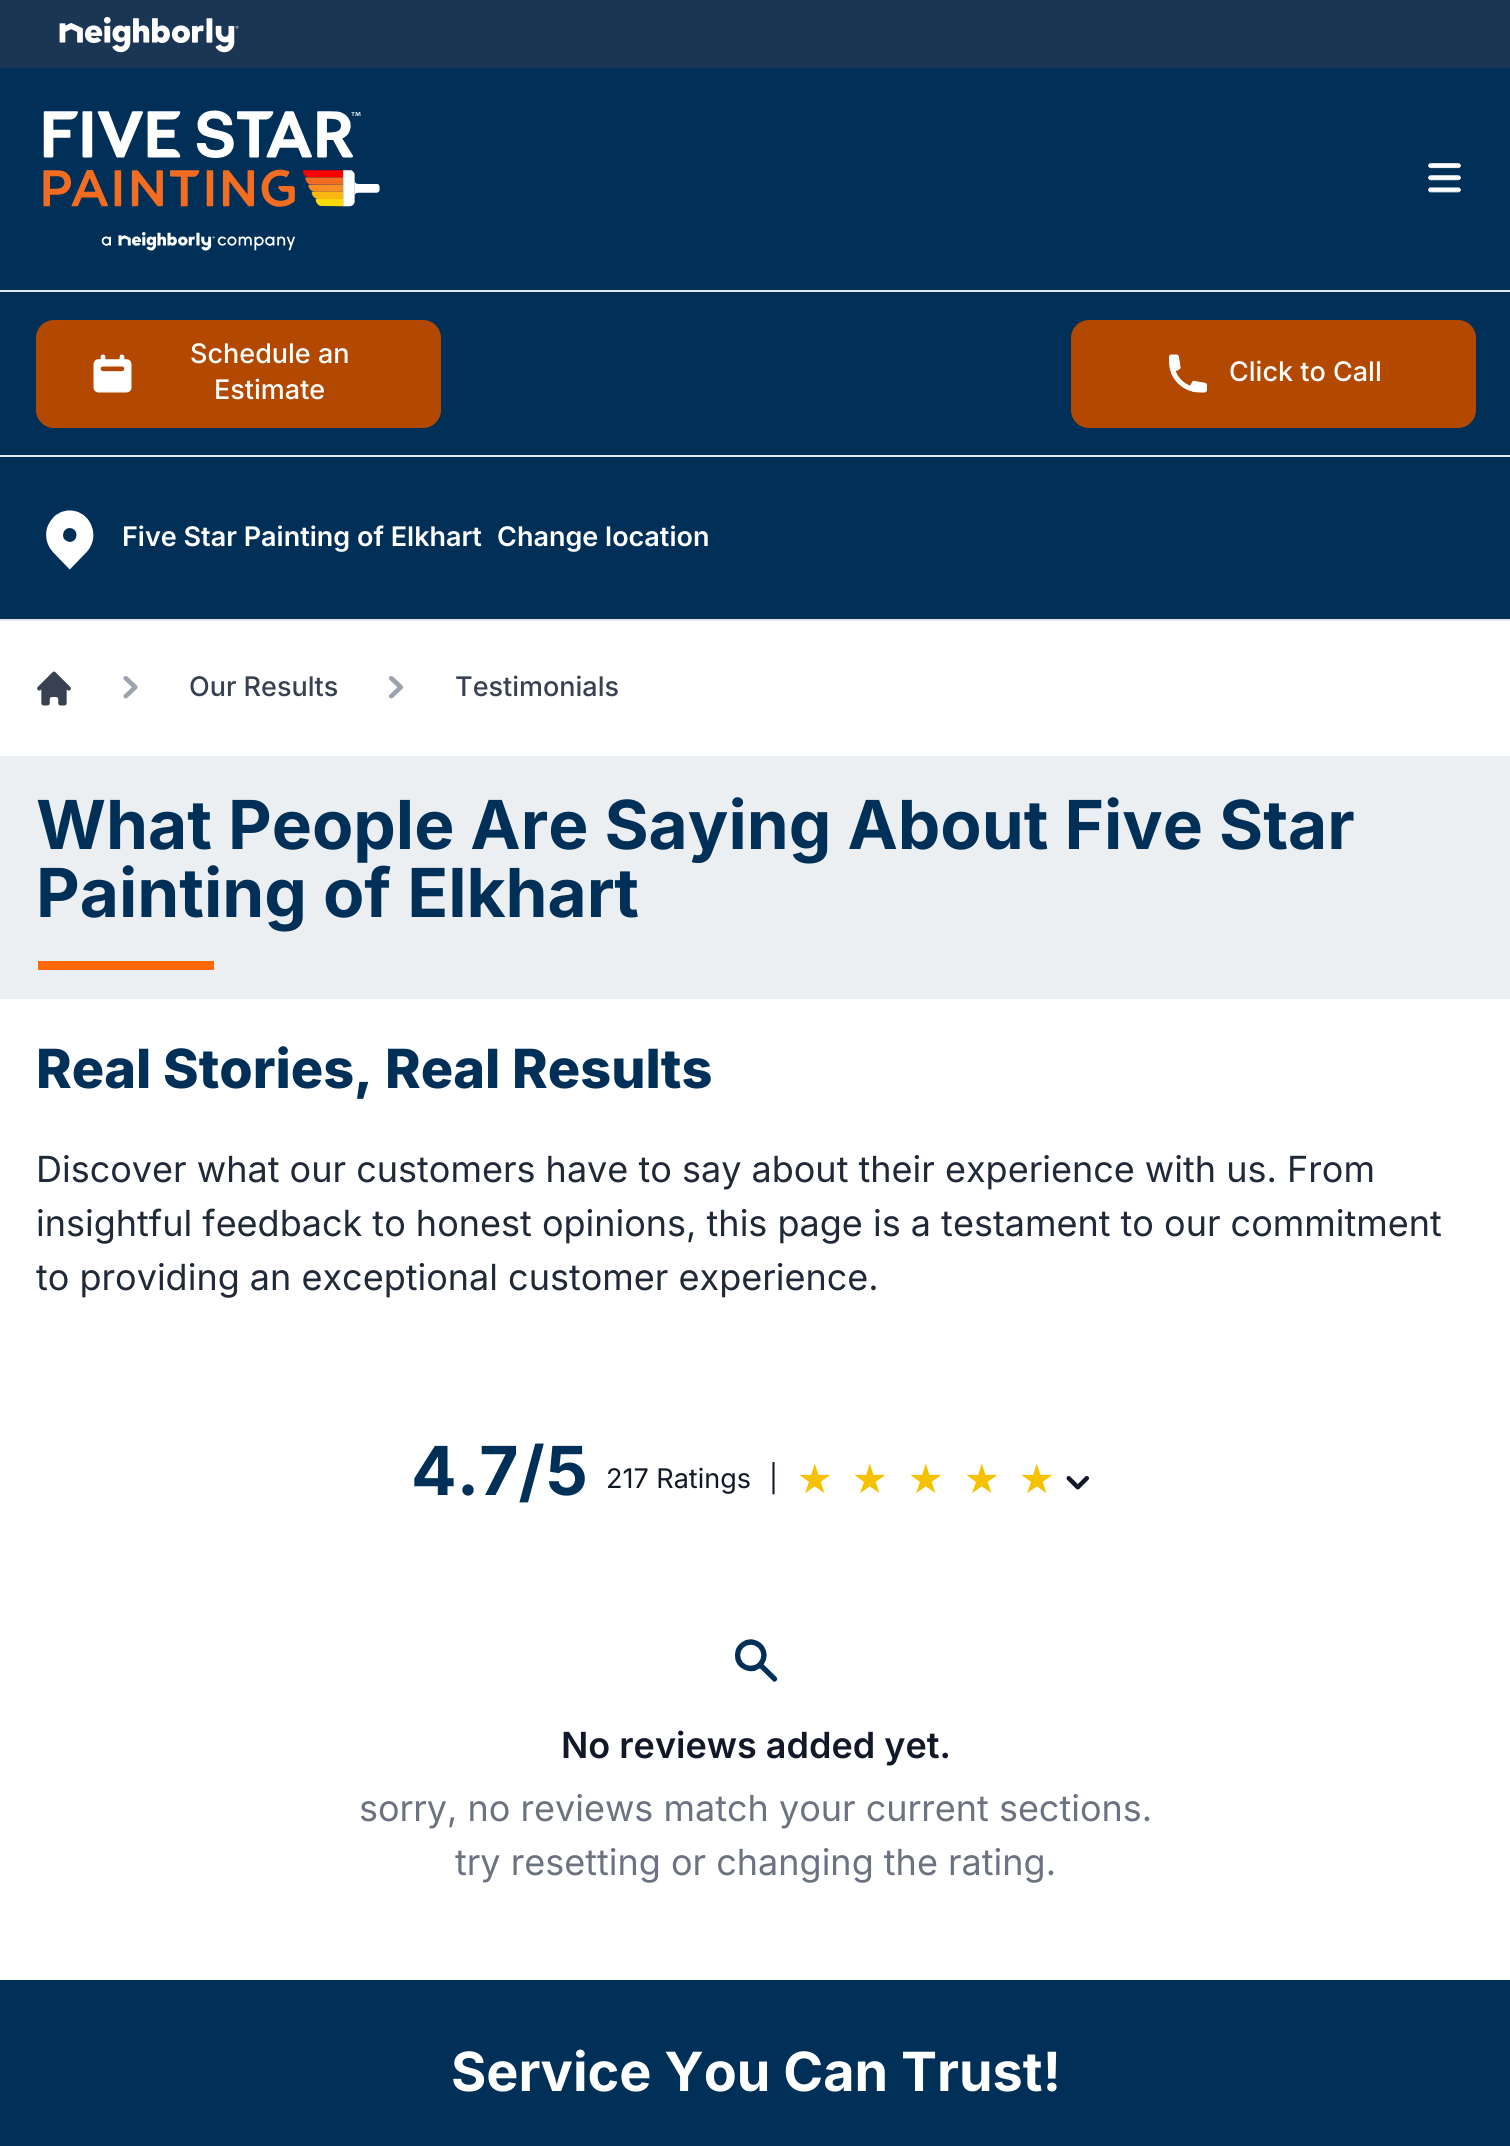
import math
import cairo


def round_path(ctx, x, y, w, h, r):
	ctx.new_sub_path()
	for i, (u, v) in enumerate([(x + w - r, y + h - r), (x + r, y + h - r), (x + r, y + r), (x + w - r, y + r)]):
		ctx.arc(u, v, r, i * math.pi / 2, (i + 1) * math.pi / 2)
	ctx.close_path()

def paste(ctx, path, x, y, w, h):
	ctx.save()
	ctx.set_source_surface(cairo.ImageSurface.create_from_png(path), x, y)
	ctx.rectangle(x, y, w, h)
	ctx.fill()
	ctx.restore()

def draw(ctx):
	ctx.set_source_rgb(1, 1, 1)
	ctx.paint()
	ctx.set_source_rgb(0.106, 0.208, 0.329)
	ctx.rectangle(0, 0, 1510, 68)
	ctx.fill()
	paste(ctx, 'media/1.png', 59, 16, 180, 37)
	ctx.set_source_rgb(0, 0.188, 0.341)
	ctx.rectangle(0, 68, 1510, 551)
	ctx.fill()
	paste(ctx, 'media/2.png', 43, 110, 337, 141)
	paste(ctx, 'media/3.png', 1428, 163, 33, 30)
	ctx.set_source_rgb(0.898, 0.906, 0.922)
	ctx.rectangle(0, 290, 1510, 2)
	ctx.fill()
	ctx.rectangle(0, 455, 1510, 2)
	ctx.fill()
	ctx.set_source_rgb(0.702, 0.286, 0)
	round_path(ctx, 36, 320, 405, 108, 18)
	ctx.fill()
	paste(ctx, 'media/4.png', 93, 354, 39, 39)
	ctx.select_font_face('Inter Medium')
	ctx.set_font_size(27)
	ctx.set_source_rgb(1, 1, 1)
	ctx.move_to(190, 363)
	ctx.show_text('Schedule an')
	ctx.move_to(214, 399)
	ctx.show_text('Estimate')
	ctx.set_source_rgb(0.702, 0.286, 0)
	round_path(ctx, 1071, 320, 405, 108, 18)
	ctx.fill()
	paste(ctx, 'media/5.png', 1169, 354, 38, 39)
	ctx.set_source_rgb(1, 1, 1)
	ctx.move_to(1229, 381)
	ctx.show_text('Click to Call')
	ctx.set_source_rgb(0.898, 0.906, 0.922)
	ctx.rectangle(0, 619, 1510, 2)
	ctx.fill()
	paste(ctx, 'media/6.png', 46, 510, 48, 60)
	ctx.select_font_face('Inter SemiBold')
	ctx.set_source_rgb(1, 1, 1)
	ctx.move_to(122, 546)
	ctx.show_text('Five Star Painting of Elkhart')
	ctx.move_to(497, 546)
	ctx.show_text('Change location')
	paste(ctx, 'media/7.png', 37, 671, 34, 35)
	paste(ctx, 'media/8.png', 123, 676, 15, 23)
	ctx.select_font_face('Inter Medium')
	ctx.set_source_rgb(0.216, 0.255, 0.318)
	ctx.move_to(189, 696)
	ctx.show_text('Our Results')
	paste(ctx, 'media/9.png', 388, 676, 16, 23)
	ctx.move_to(455, 696)
	ctx.show_text('Testimonials')
	ctx.set_source_rgb(0.922, 0.937, 0.949)
	ctx.rectangle(0, 756, 1510, 243)
	ctx.fill()
	ctx.select_font_face('Inter', cairo.FONT_SLANT_NORMAL, cairo.FONT_WEIGHT_BOLD)
	ctx.set_font_size(67.5)
	ctx.set_source_rgb(0, 0.188, 0.341)
	ctx.move_to(36, 849)
	ctx.show_text('What People Are Saying About Five Star')
	ctx.move_to(36, 917)
	ctx.show_text('Painting of Elkhart')
	ctx.set_source_rgb(1, 0.412, 0)
	ctx.rectangle(38, 961, 176, 9)
	ctx.fill()
	ctx.select_font_face('Inter ExtraBold')
	ctx.set_font_size(54)
	ctx.set_source_rgb(0, 0.188, 0.341)
	ctx.move_to(36, 1088)
	ctx.show_text('Real Stories, Real Results')
	ctx.select_font_face('Inter')
	ctx.set_font_size(36)
	ctx.set_source_rgb(0.122, 0.161, 0.216)
	for x, y, s in [
		(36, 1182, 'Discover what our customers have to say about their experience with us. From'),
		(36, 1236, 'insightful feedback to honest opinions, this page is a testament to our commitment'),
		(36, 1290, 'to providing an exceptional customer experience.'),
	]:
		ctx.move_to(x, y)
		ctx.show_text(s)
	ctx.select_font_face('Inter', cairo.FONT_SLANT_NORMAL, cairo.FONT_WEIGHT_BOLD)
	ctx.set_font_size(67.5)
	ctx.set_source_rgb(0, 0.188, 0.341)
	ctx.move_to(411, 1495)
	ctx.show_text('4.7/5')
	ctx.select_font_face('Inter')
	ctx.set_font_size(27)
	ctx.set_source_rgb(0.067, 0.094, 0.153)
	ctx.move_to(606, 1488)
	ctx.show_text('217 Ratings')
	ctx.move_to(769, 1488)
	ctx.show_text('|')
	ctx.set_font_size(36)
	ctx.set_source_rgb(0.961, 0.761, 0)
	for x, y, s in [
		(796, 1493, '★'),
		(851, 1493, '★'),
		(907, 1493, '★'),
		(963, 1493, '★'),
		(1018, 1493, '★'),
	]:
		ctx.move_to(x, y)
		ctx.show_text(s)
	paste(ctx, 'media/10.png', 1066, 1476, 23, 14)
	paste(ctx, 'media/11.png', 734, 1639, 44, 43)
	ctx.select_font_face('Inter SemiBold')
	ctx.set_source_rgb(0.067, 0.094, 0.153)
	ctx.move_to(561, 1758)
	ctx.show_text('No reviews added yet.')
	ctx.select_font_face('Inter')
	ctx.set_source_rgb(0.42, 0.447, 0.502)
	ctx.move_to(359, 1821)
	ctx.show_text('sorry, no reviews match your current sections.')
	ctx.move_to(455, 1875)
	ctx.show_text('try resetting or changing the rating.')
	ctx.set_source_rgb(0, 0.188, 0.341)
	ctx.rectangle(0, 1980, 1510, 166)
	ctx.fill()
	ctx.select_font_face('Inter', cairo.FONT_SLANT_NORMAL, cairo.FONT_WEIGHT_BOLD)
	ctx.set_font_size(54)
	ctx.set_source_rgb(1, 1, 1)
	ctx.move_to(451, 2091)
	ctx.show_text('Service You Can Trust!')


surface = cairo.ImageSurface(cairo.FORMAT_RGB24, 1510, 2146)
ctx = cairo.Context(surface)
options = cairo.FontOptions()
options.set_hint_metrics(cairo.HINT_METRICS_OFF)
options.set_hint_style(cairo.HINT_STYLE_NONE)
ctx.set_font_options(options)
ctx.set_miter_limit(4)
draw(ctx)
surface.write_to_png('image.png')
